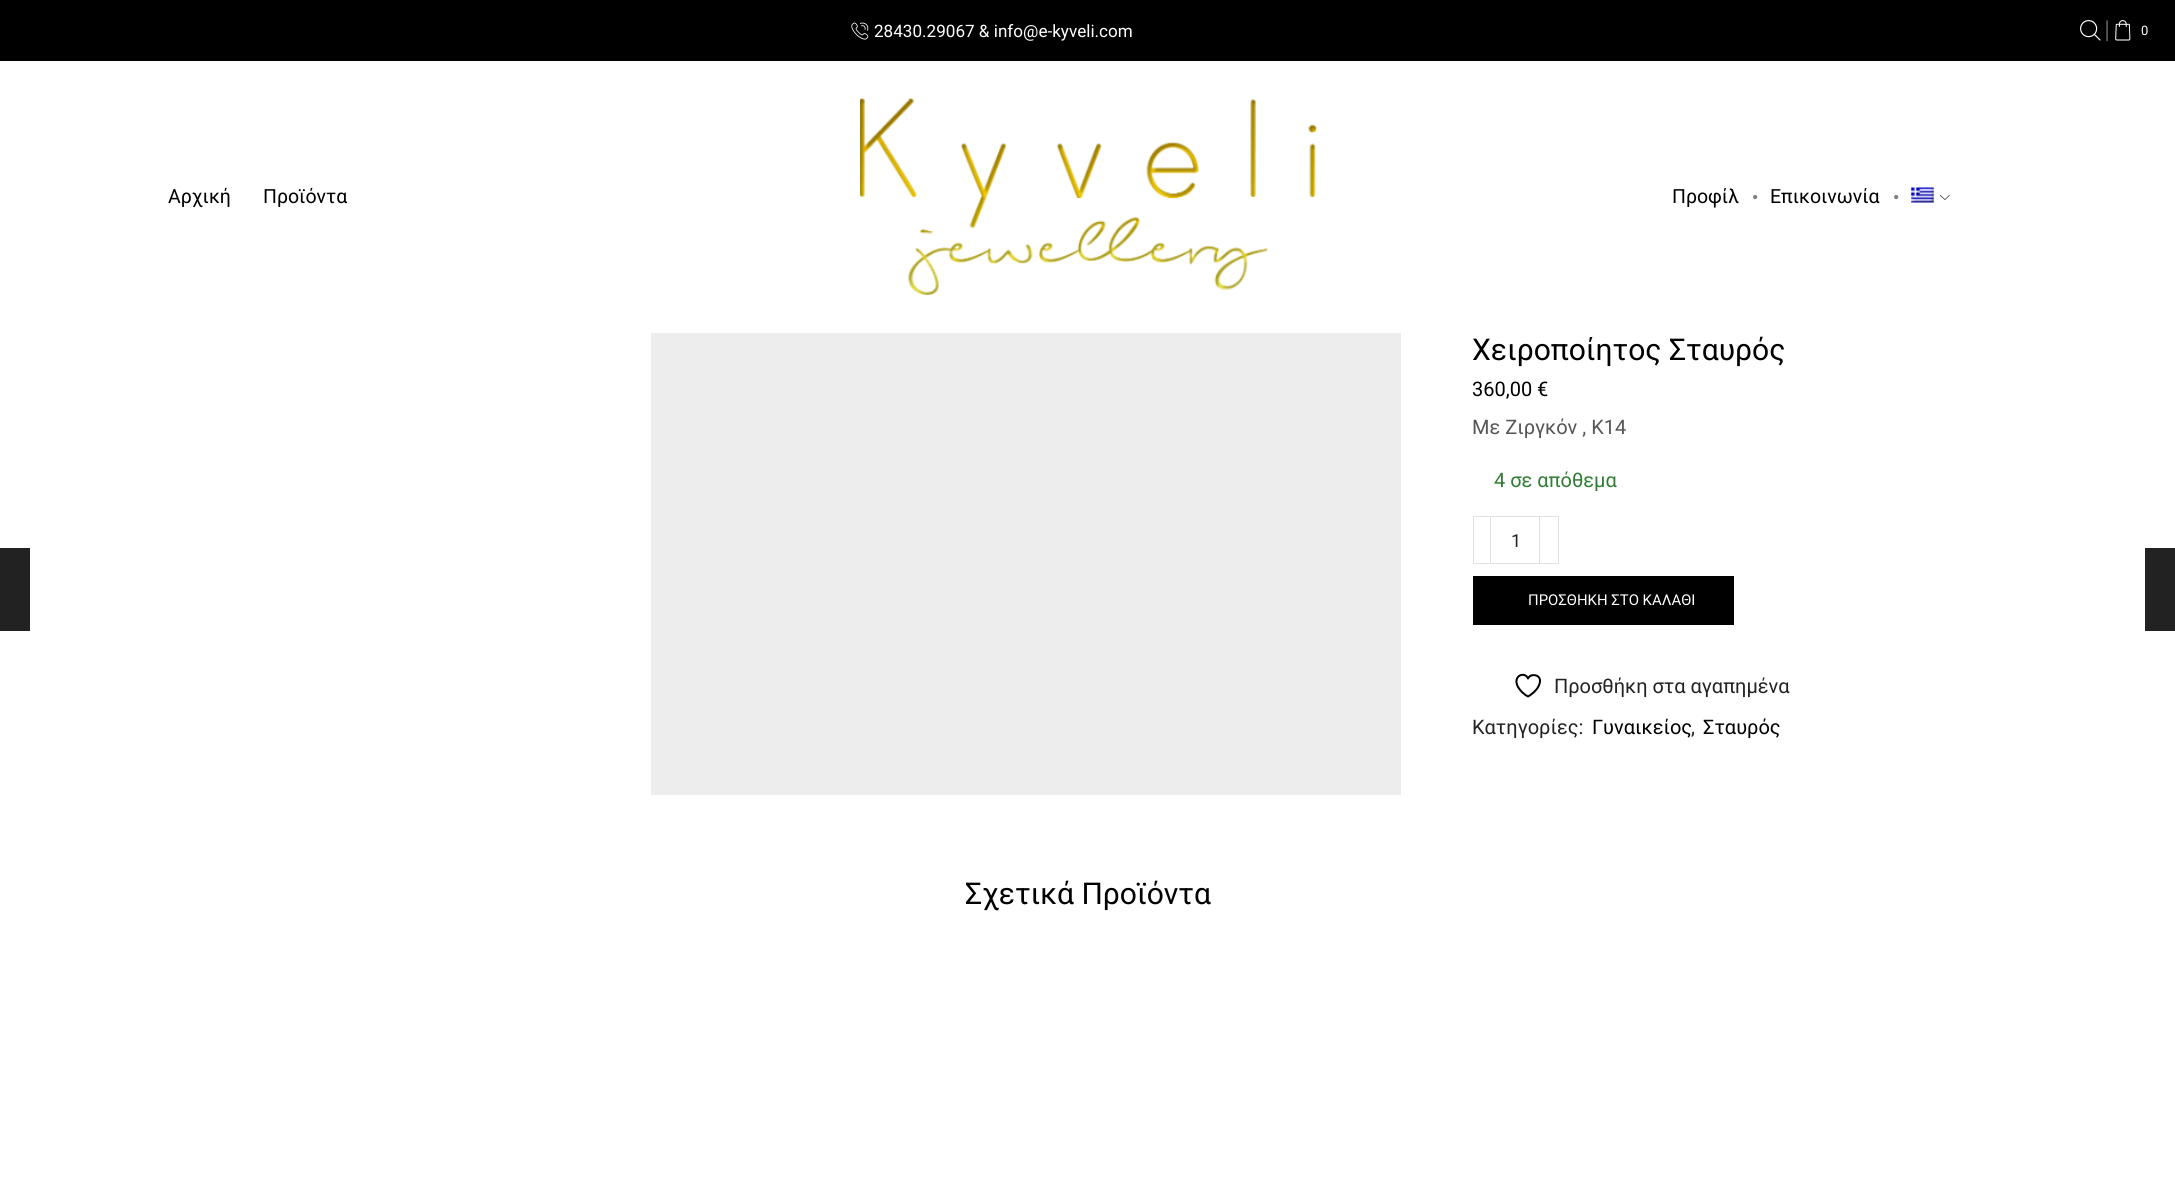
import math
import cairo


def paste(ctx, path, x, y, w, h):
	ctx.save()
	ctx.set_source_surface(cairo.ImageSurface.create_from_png(path), x, y)
	ctx.rectangle(x, y, w, h)
	ctx.fill()
	ctx.restore()

def draw(ctx):
	ctx.set_source_rgb(1, 1, 1)
	ctx.paint()
	ctx.set_source_rgb(0, 0, 0)
	ctx.rectangle(0, 0, 2175, 61)
	ctx.fill()
	paste(ctx, 'media/1.png', 851, 22, 18, 18)
	ctx.select_font_face('Roboto')
	ctx.set_font_size(17.1)
	ctx.set_source_rgb(1, 1, 1)
	ctx.move_to(874, 37)
	ctx.show_text('28430.29067 & info@e-kyveli.com')
	paste(ctx, 'media/2.png', 2080, 20, 21, 21)
	ctx.select_font_face('Liberation Serif')
	ctx.set_source_rgb(0.502, 0.502, 0.502)
	ctx.move_to(2101, 36)
	ctx.show_text('│')
	paste(ctx, 'media/3.png', 2115, 20, 16, 21)
	ctx.select_font_face('Roboto')
	ctx.set_font_size(13)
	ctx.set_source_rgb(1, 1, 1)
	ctx.move_to(2141, 35)
	ctx.show_text('0')
	ctx.set_font_size(19.5)
	ctx.set_source_rgb(0, 0, 0)
	ctx.move_to(168, 203)
	ctx.show_text('Αρχική')
	ctx.move_to(263, 203)
	ctx.show_text('Προϊόντα')
	paste(ctx, 'media/4.png', 860, 98, 457, 197)
	ctx.move_to(1672, 203)
	ctx.show_text('Προφίλ')
	ctx.select_font_face('Liberation Serif')
	ctx.set_font_size(18)
	ctx.set_source_rgb(0.502, 0.502, 0.502)
	ctx.move_to(1752, 203)
	ctx.show_text('•')
	ctx.select_font_face('Roboto')
	ctx.set_font_size(19.5)
	ctx.set_source_rgb(0, 0, 0)
	ctx.move_to(1770, 203)
	ctx.show_text('Επικοινωνία')
	ctx.select_font_face('Liberation Serif')
	ctx.set_font_size(18)
	ctx.set_source_rgb(0.502, 0.502, 0.502)
	ctx.move_to(1893, 203)
	ctx.show_text('•')
	paste(ctx, 'media/5.png', 1911, 187, 23, 16)
	paste(ctx, 'media/6.png', 1940, 194, 10, 6)
	ctx.set_source_rgb(0.929, 0.929, 0.929)
	ctx.rectangle(651, 333, 750, 462)
	ctx.fill()
	ctx.select_font_face('Roboto')
	ctx.set_font_size(30)
	ctx.set_source_rgb(0, 0, 0)
	ctx.move_to(1472, 360)
	ctx.show_text('Χειροποίητος Σταυρός')
	ctx.set_font_size(20)
	ctx.move_to(1472, 396)
	ctx.show_text('360,00 €')
	ctx.set_source_rgb(0.333, 0.333, 0.333)
	ctx.move_to(1472, 434)
	ctx.show_text('Mε Ζιργκόν , Κ14')
	ctx.set_source_rgb(0.18, 0.49, 0.196)
	ctx.move_to(1494, 487)
	ctx.show_text('4 σε απόθεμα')
	ctx.rectangle(1473.5, 516.5, 17, 47)
	ctx.set_source_rgb(0.882, 0.882, 0.882)
	ctx.set_line_width(1)
	ctx.stroke()
	ctx.rectangle(1491, 516, 48, 1)
	ctx.fill()
	ctx.rectangle(1491, 563, 48, 1)
	ctx.fill()
	ctx.set_font_size(18)
	ctx.set_source_rgb(0.133, 0.133, 0.133)
	ctx.move_to(1511, 547)
	ctx.show_text('1')
	ctx.rectangle(1539.5, 516.5, 19, 47)
	ctx.set_source_rgb(0.882, 0.882, 0.882)
	ctx.stroke()
	ctx.set_source_rgb(0, 0, 0)
	ctx.rectangle(1473, 576, 261, 49)
	ctx.fill()
	ctx.set_font_size(14.9)
	ctx.set_source_rgb(1, 1, 1)
	ctx.move_to(1528, 605)
	ctx.show_text('ΠΡΟΣΘΗΚΗ ΣΤΟ ΚΑΛΑΘΙ')
	ctx.new_path()
	ctx.move_to(1540, 680.5)
	ctx.curve_to(1540, 674.5, 1530.5, 673, 1528, 678.5)
	ctx.curve_to(1525, 671, 1512, 675.5, 1518, 687)
	ctx.curve_to(1520.5, 691, 1524, 694.5, 1528, 696.5)
	ctx.curve_to(1528, 696.5, 1540, 690, 1540, 680.5)
	ctx.close_path()
	ctx.set_source_rgb(0, 0, 0)
	ctx.set_line_width(2)
	ctx.set_line_cap(cairo.LINE_CAP_ROUND)
	ctx.set_line_join(cairo.LINE_JOIN_ROUND)
	ctx.stroke()
	ctx.set_font_size(20)
	ctx.set_source_rgb(0.133, 0.133, 0.133)
	ctx.move_to(1554, 693)
	ctx.show_text('Προσθήκη στα αγαπημένα')
	ctx.move_to(1472, 734)
	ctx.show_text('Κατηγορίες:')
	ctx.set_source_rgb(0, 0, 0)
	ctx.move_to(1592, 734)
	ctx.show_text('Γυναικείος')
	ctx.set_source_rgb(0.133, 0.133, 0.133)
	ctx.move_to(1691, 734)
	ctx.show_text(',')
	ctx.set_source_rgb(0, 0, 0)
	ctx.move_to(1703, 734)
	ctx.show_text('Σταυρός')
	ctx.set_source_rgb(0.133, 0.133, 0.133)
	ctx.rectangle(0, 548, 30, 83)
	ctx.fill()
	ctx.rectangle(2145, 548, 30, 83)
	ctx.fill()
	ctx.set_font_size(30)
	ctx.set_source_rgb(0, 0, 0)
	ctx.move_to(965, 904)
	ctx.show_text('Σχετικά Προϊόντα')


surface = cairo.ImageSurface(cairo.FORMAT_RGB24, 2175, 1178)
ctx = cairo.Context(surface)
options = cairo.FontOptions()
options.set_hint_metrics(cairo.HINT_METRICS_OFF)
options.set_hint_style(cairo.HINT_STYLE_NONE)
ctx.set_font_options(options)
ctx.set_miter_limit(4)
draw(ctx)
surface.write_to_png('image.png')
